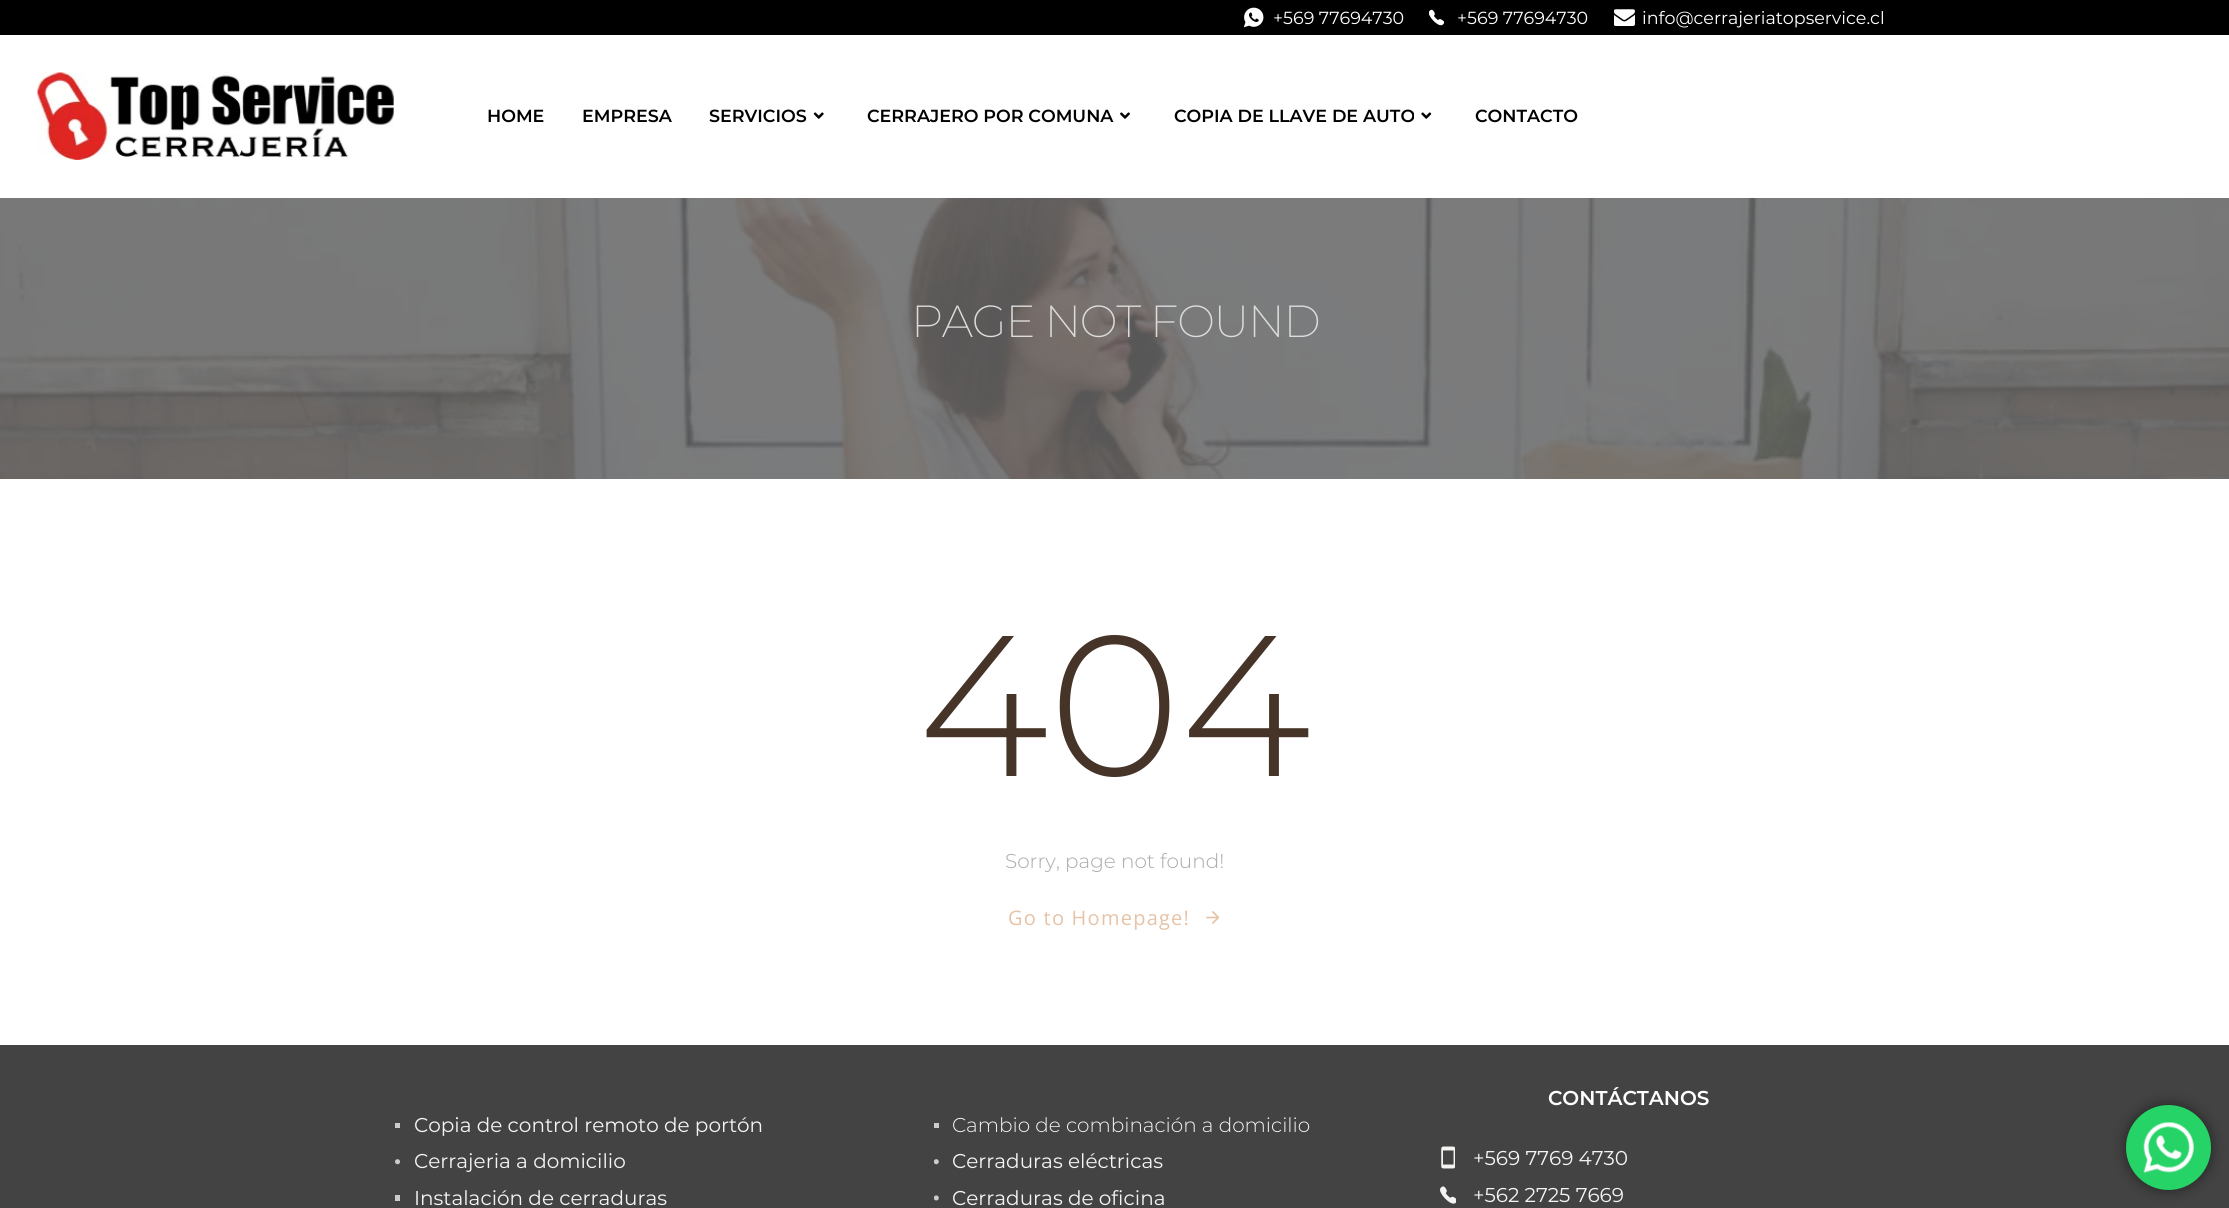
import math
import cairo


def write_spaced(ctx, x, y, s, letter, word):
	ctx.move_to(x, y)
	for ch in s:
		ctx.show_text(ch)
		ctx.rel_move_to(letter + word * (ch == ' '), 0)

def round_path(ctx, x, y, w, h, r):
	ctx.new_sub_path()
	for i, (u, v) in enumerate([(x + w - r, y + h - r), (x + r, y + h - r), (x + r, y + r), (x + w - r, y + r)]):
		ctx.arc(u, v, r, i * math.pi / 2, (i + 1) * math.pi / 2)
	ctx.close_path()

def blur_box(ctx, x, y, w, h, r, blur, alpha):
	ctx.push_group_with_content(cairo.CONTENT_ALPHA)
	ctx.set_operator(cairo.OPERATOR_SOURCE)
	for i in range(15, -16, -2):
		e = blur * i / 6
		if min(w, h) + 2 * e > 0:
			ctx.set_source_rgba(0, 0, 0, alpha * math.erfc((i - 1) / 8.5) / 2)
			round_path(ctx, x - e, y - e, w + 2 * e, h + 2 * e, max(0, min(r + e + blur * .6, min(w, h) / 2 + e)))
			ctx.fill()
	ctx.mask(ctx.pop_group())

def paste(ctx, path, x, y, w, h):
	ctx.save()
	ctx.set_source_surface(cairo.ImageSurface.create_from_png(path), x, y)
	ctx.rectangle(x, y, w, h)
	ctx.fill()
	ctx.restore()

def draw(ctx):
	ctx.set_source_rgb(1, 1, 1)
	ctx.paint()
	ctx.set_source_rgb(0, 0, 0)
	ctx.rectangle(0, 0, 2229, 35)
	ctx.fill()
	paste(ctx, 'media/1.png', 1244, 7, 20, 21)
	ctx.select_font_face('Montserrat')
	ctx.set_font_size(17.5)
	ctx.set_source_rgb(1, 1, 1)
	ctx.move_to(1273, 24)
	ctx.show_text('+569 77694730')
	paste(ctx, 'media/2.png', 1429, 9, 15, 17)
	ctx.move_to(1457, 24)
	ctx.show_text('+569 77694730')
	paste(ctx, 'media/3.png', 1614, 9, 21, 17)
	ctx.move_to(1642, 24)
	ctx.show_text('info@cerrajeriatopservice.cl')
	paste(ctx, 'media/4.png', 37, 72, 357, 88)
	ctx.select_font_face('Montserrat SemiBold')
	ctx.set_source_rgb(0, 0, 0)
	for x, y, s in [
		(487, 122, 'HOME'),
		(582, 122, 'EMPRESA'),
		(709, 122, 'SERVICIOS'),
	]:
		ctx.move_to(x, y)
		ctx.show_text(s)
	paste(ctx, 'media/5.png', 813, 112, 11, 7)
	ctx.move_to(867, 122)
	ctx.show_text('CERRAJERO POR COMUNA')
	paste(ctx, 'media/6.png', 1120, 112, 10, 7)
	ctx.move_to(1174, 122)
	ctx.show_text('COPIA DE LLAVE DE AUTO')
	paste(ctx, 'media/7.png', 1421, 112, 11, 7)
	ctx.move_to(1475, 122)
	ctx.show_text('CONTACTO')
	paste(ctx, 'media/8.png', 0, 198, 2229, 281)
	ctx.select_font_face('Montserrat ExtraLight')
	ctx.set_font_size(45)
	ctx.set_source_rgb(0.863, 0.863, 0.863)
	write_spaced(ctx, 911, 337, 'PAGE NOT FOUND', -1.25, 0)
	ctx.select_font_face('Montserrat Light')
	ctx.set_font_size(200)
	ctx.set_source_rgb(0.271, 0.204, 0.153)
	ctx.move_to(918, 776)
	ctx.show_text('404')
	ctx.set_font_size(20)
	ctx.set_source_rgb(0.663, 0.663, 0.663)
	ctx.move_to(1005, 868)
	ctx.show_text('Sorry, page not found!')
	ctx.select_font_face('Open Sans')
	ctx.set_source_rgb(0.898, 0.765, 0.651)
	write_spaced(ctx, 1008, 925, 'Go to Homepage!', 1.25, 0)
	paste(ctx, 'media/9.png', 1206, 911, 13, 13)
	ctx.set_source_rgb(0.263, 0.263, 0.263)
	ctx.rectangle(0, 1045, 2229, 163)
	ctx.fill()
	ctx.set_source_rgb(0.8, 0.8, 0.8)
	ctx.rectangle(395, 1123, 5, 5)
	ctx.fill()
	ctx.select_font_face('Montserrat')
	ctx.set_source_rgb(0.961, 0.957, 0.953)
	ctx.move_to(414, 1132)
	ctx.show_text('Copia de control remoto de portón')
	paste(ctx, 'media/10.png', 395, 1159, 5, 6)
	ctx.move_to(414, 1168)
	ctx.show_text('Cerrajeria a domicilio')
	ctx.set_source_rgb(0.8, 0.8, 0.8)
	ctx.rectangle(395, 1195, 5, 6)
	ctx.fill()
	ctx.set_source_rgb(0.961, 0.957, 0.953)
	ctx.move_to(414, 1205)
	ctx.show_text('Instalación de cerraduras')
	ctx.set_source_rgb(0.8, 0.8, 0.8)
	ctx.rectangle(934, 1123, 5, 5)
	ctx.fill()
	ctx.select_font_face('Montserrat Light')
	ctx.set_source_rgb(0.961, 0.957, 0.953)
	ctx.move_to(952, 1132)
	ctx.show_text('Cambio de combinación a domicilio')
	paste(ctx, 'media/11.png', 934, 1159, 5, 6)
	ctx.select_font_face('Montserrat')
	ctx.move_to(952, 1168)
	ctx.show_text('Cerraduras eléctricas')
	paste(ctx, 'media/12.png', 934, 1195, 5, 6)
	ctx.move_to(952, 1205)
	ctx.show_text('Cerraduras de oficina')
	ctx.select_font_face('Montserrat SemiBold')
	ctx.set_source_rgb(1, 1, 1)
	ctx.move_to(1548, 1105)
	ctx.show_text('CONTÁCTANOS')
	paste(ctx, 'media/13.png', 1441, 1146, 14, 23)
	ctx.select_font_face('Montserrat')
	ctx.set_source_rgb(0.961, 0.957, 0.953)
	ctx.move_to(1473, 1165)
	ctx.show_text('+569 7769 4730')
	paste(ctx, 'media/14.png', 1440, 1186, 16, 18)
	ctx.move_to(1473, 1202)
	ctx.show_text('+562 2725 7669')
	ctx.set_source_rgb(0, 0, 0)
	blur_box(ctx, 2126, 1105, 85, 85, 42.5, 7, 0.5)
	ctx.set_source_rgb(0.145, 0.827, 0.4)
	ctx.arc(2168.5, 1147.5, 42.5, 0, 2 * math.pi)
	ctx.fill()
	paste(ctx, 'media/15.png', 2143, 1122, 51, 51)


surface = cairo.ImageSurface(cairo.FORMAT_RGB24, 2229, 1208)
ctx = cairo.Context(surface)
options = cairo.FontOptions()
options.set_hint_metrics(cairo.HINT_METRICS_OFF)
options.set_hint_style(cairo.HINT_STYLE_NONE)
ctx.set_font_options(options)
ctx.set_miter_limit(4)
draw(ctx)
surface.write_to_png('image.png')
